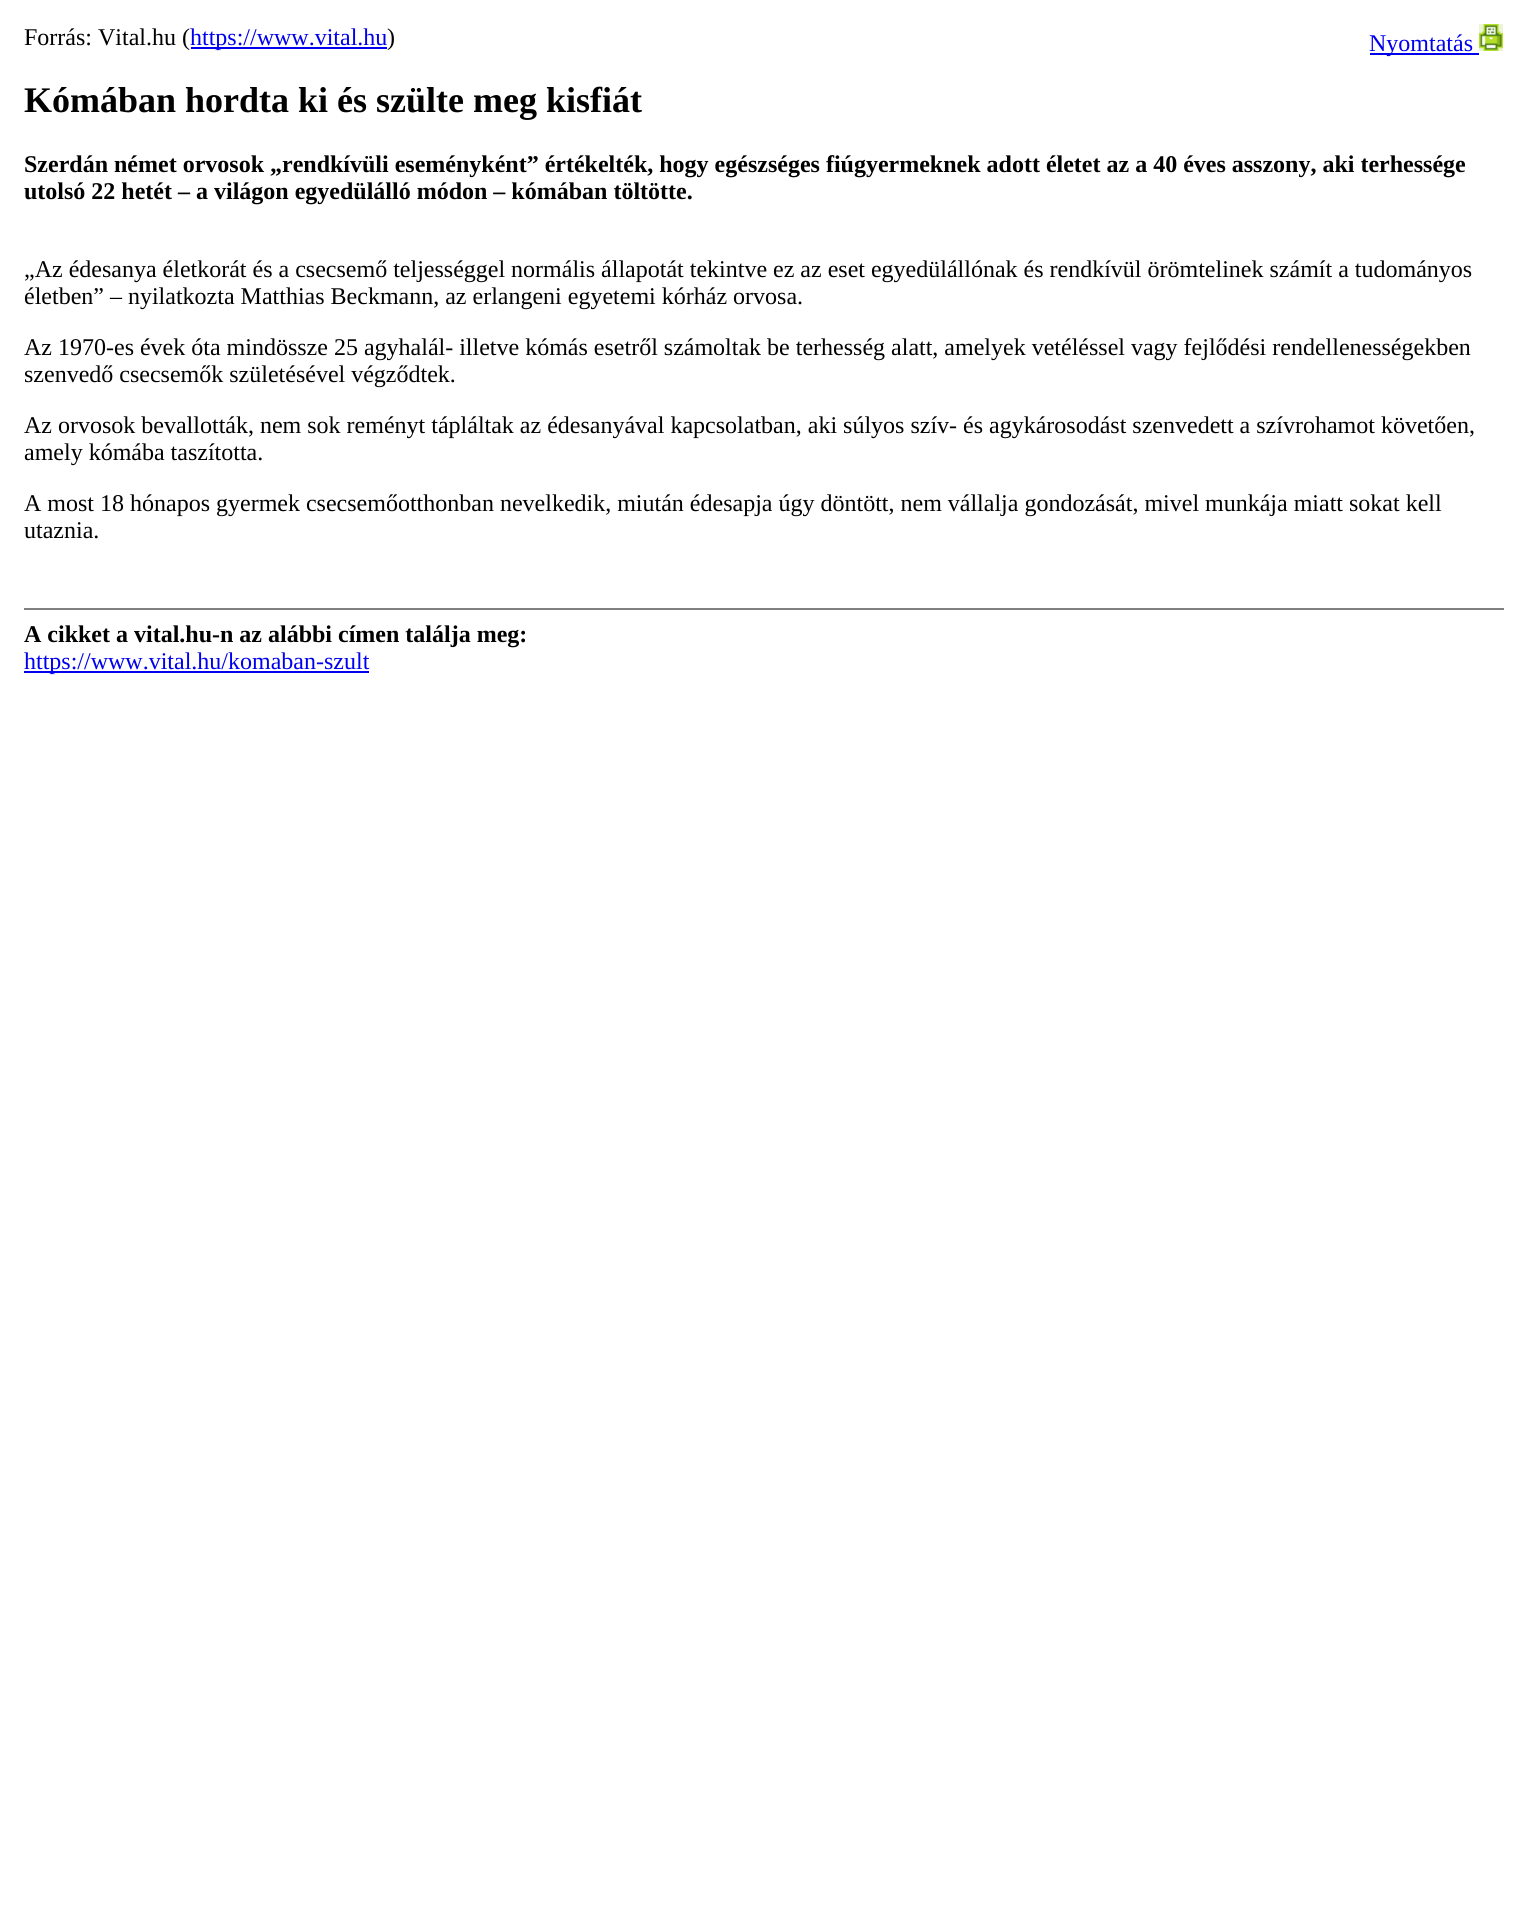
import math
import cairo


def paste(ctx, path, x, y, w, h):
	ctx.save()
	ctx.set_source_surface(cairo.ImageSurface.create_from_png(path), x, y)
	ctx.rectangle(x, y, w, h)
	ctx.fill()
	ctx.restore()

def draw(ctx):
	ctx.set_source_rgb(1, 1, 1)
	ctx.paint()
	ctx.select_font_face('Liberation Serif')
	ctx.set_font_size(24)
	ctx.set_source_rgb(0, 0, 0)
	ctx.move_to(24, 45)
	ctx.show_text('Forrás: Vital.hu (')
	ctx.set_source_rgb(0, 0, 0.933)
	ctx.rectangle(191, 47, 196, 2)
	ctx.fill()
	ctx.move_to(190, 45)
	ctx.show_text('https://www.vital.hu')
	ctx.set_source_rgb(0, 0, 0)
	ctx.move_to(387, 45)
	ctx.show_text(')')
	ctx.set_source_rgb(0, 0, 0.933)
	ctx.rectangle(1370, 53, 109, 2)
	ctx.fill()
	ctx.move_to(1369, 51)
	ctx.show_text('Nyomtatás')
	paste(ctx, 'media/1.png', 1479, 24, 24, 27)
	ctx.select_font_face('Liberation Serif', cairo.FONT_SLANT_NORMAL, cairo.FONT_WEIGHT_BOLD)
	ctx.set_font_size(36)
	ctx.set_source_rgb(0, 0, 0)
	ctx.move_to(24, 112)
	ctx.show_text('Kómában hordta ki és szülte meg kisfiát')
	ctx.set_font_size(24)
	ctx.move_to(24, 172)
	ctx.show_text('Szerdán német orvosok „rendkívüli eseményként” értékelték, hogy egészséges fiúgyermeknek adott életet az a 40 éves asszony, aki terhessége')
	ctx.move_to(24, 199)
	ctx.show_text('utolsó 22 hetét – a világon egyedülálló módon – kómában töltötte.')
	ctx.select_font_face('Liberation Serif')
	for x, y, s in [
		(24, 277, '„Az édesanya életkorát és a csecsemő teljességgel normális állapotát tekintve ez az eset egyedülállónak és rendkívül örömtelinek számít a tudományos'),
		(24, 304, 'életben” – nyilatkozta Matthias Beckmann, az erlangeni egyetemi kórház orvosa.'),
		(24, 355, 'Az 1970-es évek óta mindössze 25 agyhalál- illetve kómás esetről számoltak be terhesség alatt, amelyek vetéléssel vagy fejlődési rendellenességekben'),
		(24, 382, 'szenvedő csecsemők születésével végződtek.'),
		(24, 433, 'Az orvosok bevallották, nem sok reményt tápláltak az édesanyával kapcsolatban, aki súlyos szív- és agykárosodást szenvedett a szívrohamot követően,'),
		(24, 460, 'amely kómába taszította.'),
		(24, 511, 'A most 18 hónapos gyermek csecsemőotthonban nevelkedik, miután édesapja úgy döntött, nem vállalja gondozását, mivel munkája miatt sokat kell'),
		(24, 538, 'utaznia.'),
	]:
		ctx.move_to(x, y)
		ctx.show_text(s)
	ctx.set_source_rgb(0.502, 0.502, 0.502)
	ctx.rectangle(24, 608, 1480, 2)
	ctx.fill()
	ctx.select_font_face('Liberation Serif', cairo.FONT_SLANT_NORMAL, cairo.FONT_WEIGHT_BOLD)
	ctx.set_source_rgb(0, 0, 0)
	ctx.move_to(24, 642)
	ctx.show_text('A cikket a vital.hu-n az alábbi címen találja meg:')
	ctx.set_source_rgb(0, 0, 0.933)
	ctx.rectangle(24, 671, 345, 2)
	ctx.fill()
	ctx.select_font_face('Liberation Serif')
	ctx.move_to(24, 669)
	ctx.show_text('https://www.vital.hu/komaban-szult')


surface = cairo.ImageSurface(cairo.FORMAT_RGB24, 1527, 1909)
ctx = cairo.Context(surface)
options = cairo.FontOptions()
options.set_hint_metrics(cairo.HINT_METRICS_OFF)
options.set_hint_style(cairo.HINT_STYLE_NONE)
ctx.set_font_options(options)
ctx.set_miter_limit(4)
draw(ctx)
surface.write_to_png('image.png')
